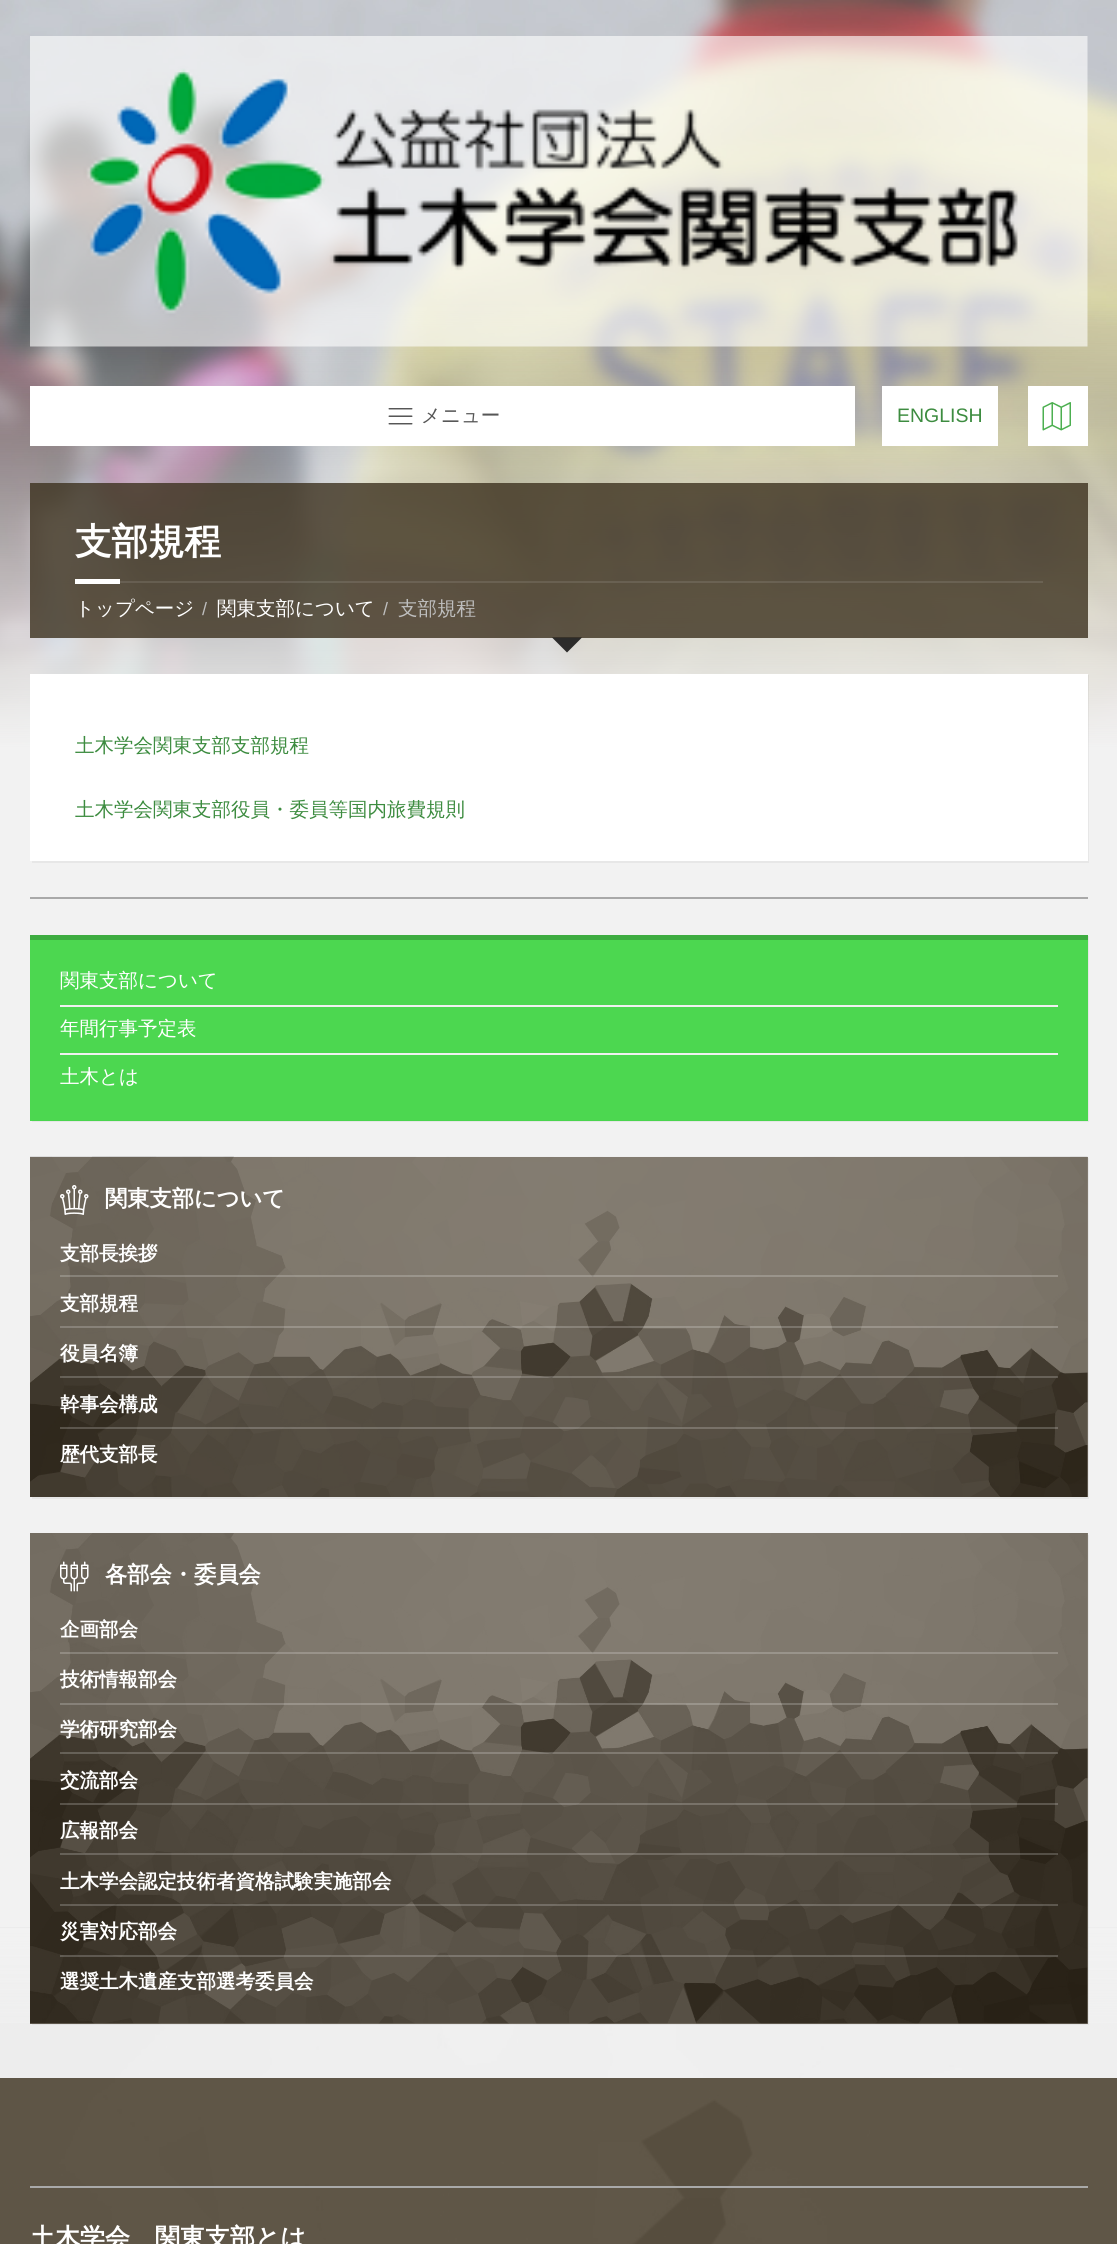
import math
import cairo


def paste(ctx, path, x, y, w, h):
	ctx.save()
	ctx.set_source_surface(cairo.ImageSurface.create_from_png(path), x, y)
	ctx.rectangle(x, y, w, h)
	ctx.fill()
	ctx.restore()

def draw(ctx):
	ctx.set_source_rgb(0.949, 0.949, 0.949)
	ctx.paint()
	paste(ctx, 'media/1.png', 0, 0, 1117, 750)
	paste(ctx, 'media/2.png', 30, 36, 1058, 311)
	ctx.set_source_rgb(1, 1, 1)
	ctx.rectangle(30, 386, 825, 60)
	ctx.fill()
	paste(ctx, 'media/3.png', 388, 408, 25, 17)
	ctx.select_font_face('WenQuanYi Zen Hei Medium')
	ctx.set_font_size(19.5)
	ctx.set_source_rgb(0.337, 0.337, 0.337)
	ctx.move_to(421, 422)
	ctx.show_text('メニュー')
	ctx.set_source_rgb(1, 1, 1)
	ctx.rectangle(882, 386, 116, 60)
	ctx.fill()
	ctx.select_font_face('Liberation Sans')
	ctx.set_source_rgb(0.239, 0.549, 0.251)
	ctx.move_to(897, 422)
	ctx.show_text('ENGLISH')
	ctx.set_source_rgb(1, 1, 1)
	ctx.rectangle(1028, 386, 60, 60)
	ctx.fill()
	paste(ctx, 'media/4.png', 1042, 402, 29, 29)
	ctx.set_source_rgba(0.239, 0.192, 0.118, 0.8)
	ctx.rectangle(30, 483, 1058, 155)
	ctx.fill()
	ctx.set_source_rgba(1, 1, 1, 0.1)
	ctx.rectangle(120, 581, 923, 2)
	ctx.fill()
	ctx.select_font_face('WenQuanYi Zen Hei', cairo.FONT_SLANT_NORMAL, cairo.FONT_WEIGHT_BOLD)
	ctx.set_font_size(36.5)
	ctx.set_source_rgb(1, 1, 1)
	ctx.move_to(75, 554)
	ctx.show_text('支部規程')
	ctx.rectangle(75, 579, 45, 5)
	ctx.fill()
	ctx.select_font_face('WenQuanYi Zen Hei Medium')
	ctx.set_font_size(19.5)
	ctx.move_to(75, 615)
	ctx.show_text('トップページ')
	ctx.select_font_face('Liberation Sans')
	ctx.set_font_size(18)
	ctx.set_source_rgb(0.745, 0.745, 0.745)
	ctx.move_to(202, 615)
	ctx.show_text('/')
	ctx.select_font_face('WenQuanYi Zen Hei Medium')
	ctx.set_font_size(19.5)
	ctx.set_source_rgb(1, 1, 1)
	ctx.move_to(217, 615)
	ctx.show_text('関東支部について')
	ctx.select_font_face('Liberation Sans')
	ctx.set_font_size(18)
	ctx.set_source_rgb(0.745, 0.745, 0.745)
	ctx.move_to(383, 615)
	ctx.show_text('/')
	ctx.select_font_face('WenQuanYi Zen Hei Medium')
	ctx.set_font_size(19.5)
	ctx.move_to(398, 615)
	ctx.show_text('支部規程')
	ctx.set_source_rgba(0, 0, 0, 0.8)
	ctx.new_path()
	ctx.move_to(552, 637.5)
	ctx.line_to(582, 637.5)
	ctx.line_to(567, 652.5)
	ctx.close_path()
	ctx.fill()
	ctx.set_source_rgba(0, 0, 0, 0.05)
	ctx.new_path()
	ctx.move_to(32, 861)
	ctx.line_to(32, 863)
	ctx.line_to(1089, 863)
	ctx.line_to(1089, 675)
	ctx.line_to(1088, 675)
	ctx.line_to(1088, 861)
	ctx.close_path()
	ctx.fill()
	ctx.set_source_rgb(1, 1, 1)
	ctx.rectangle(30, 674, 1058, 187)
	ctx.fill()
	ctx.set_source_rgb(0.239, 0.549, 0.251)
	ctx.move_to(75, 752)
	ctx.show_text('土木学会関東支部支部規程')
	ctx.move_to(75, 816)
	ctx.show_text('土木学会関東支部役員・委員等国内旅費規則')
	ctx.set_source_rgb(0.663, 0.663, 0.663)
	ctx.rectangle(30, 897, 1058, 2)
	ctx.fill()
	ctx.set_source_rgb(0.902, 0.902, 0.902)
	ctx.new_path()
	ctx.move_to(32, 1120)
	ctx.line_to(32, 1122)
	ctx.line_to(1089, 1122)
	ctx.line_to(1089, 936)
	ctx.line_to(1088, 936)
	ctx.line_to(1088, 1120)
	ctx.close_path()
	ctx.fill()
	ctx.set_source_rgba(0.137, 0.816, 0.157, 0.8)
	ctx.rectangle(30, 940, 1058, 181)
	ctx.fill()
	ctx.set_source_rgb(0.239, 0.675, 0.251)
	ctx.rectangle(30, 935, 1058, 5)
	ctx.fill()
	ctx.set_source_rgb(1, 1, 1)
	ctx.move_to(60, 987)
	ctx.show_text('関東支部について')
	ctx.set_source_rgb(0.941, 0.941, 0.941)
	ctx.rectangle(60, 1005, 998, 2)
	ctx.fill()
	ctx.set_source_rgb(1, 1, 1)
	ctx.move_to(60, 1035)
	ctx.show_text('年間行事予定表')
	ctx.set_source_rgb(0.941, 0.941, 0.941)
	ctx.rectangle(60, 1053, 998, 2)
	ctx.fill()
	ctx.set_source_rgb(1, 1, 1)
	ctx.move_to(60, 1083)
	ctx.show_text('土木とは')
	ctx.set_source_rgb(0.902, 0.902, 0.902)
	ctx.new_path()
	ctx.move_to(32, 1497)
	ctx.line_to(32, 1499)
	ctx.line_to(1089, 1499)
	ctx.line_to(1089, 1158)
	ctx.line_to(1088, 1158)
	ctx.line_to(1088, 1497)
	ctx.close_path()
	ctx.fill()
	ctx.set_source_rgb(0.545, 0.514, 0.471)
	ctx.rectangle(1087, 1157, 1, 340)
	ctx.fill()
	paste(ctx, 'media/5.png', 30, 1156, 1058, 341)
	paste(ctx, 'media/6.png', 60, 1185, 29, 30)
	ctx.select_font_face('WenQuanYi Zen Hei', cairo.FONT_SLANT_NORMAL, cairo.FONT_WEIGHT_BOLD)
	ctx.set_font_size(22.25)
	ctx.set_source_rgb(1, 1, 1)
	ctx.move_to(105, 1206)
	ctx.show_text('関東支部について')
	ctx.set_font_size(19.5)
	ctx.move_to(60, 1260)
	ctx.show_text('支部長挨拶')
	ctx.set_source_rgba(1, 1, 1, 0.2)
	ctx.rectangle(60, 1275, 998, 2)
	ctx.fill()
	ctx.set_source_rgb(1, 1, 1)
	ctx.move_to(60, 1310)
	ctx.show_text('支部規程')
	ctx.set_source_rgba(1, 1, 1, 0.2)
	ctx.rectangle(60, 1326, 998, 2)
	ctx.fill()
	ctx.set_source_rgb(1, 1, 1)
	ctx.move_to(60, 1360)
	ctx.show_text('役員名簿')
	ctx.set_source_rgba(1, 1, 1, 0.2)
	ctx.rectangle(60, 1376, 998, 2)
	ctx.fill()
	ctx.set_source_rgb(1, 1, 1)
	ctx.move_to(60, 1411)
	ctx.show_text('幹事会構成')
	ctx.set_source_rgba(1, 1, 1, 0.2)
	ctx.rectangle(60, 1427, 998, 2)
	ctx.fill()
	ctx.set_source_rgb(1, 1, 1)
	ctx.move_to(60, 1461)
	ctx.show_text('歴代支部長')
	paste(ctx, 'media/9.png', 0, 1927, 1117, 317)
	ctx.set_source_rgba(0.949, 0.949, 0.949, 0.6)
	ctx.rectangle(0, 1929, 1117, 149)
	ctx.fill()
	gradient = cairo.LinearGradient(559, 1928, 559, 2078)
	gradient.add_color_stop_rgba(0, 0.949, 0.949, 0.949, 1)
	gradient.add_color_stop_rgba(1, 0.949, 0.949, 0.949, 0)
	ctx.set_source(gradient)
	ctx.rectangle(0, 1928, 1117, 95)
	ctx.fill()
	ctx.set_source_rgba(0, 0, 0, 0.05)
	ctx.new_path()
	ctx.move_to(32, 2024)
	ctx.line_to(32, 2025)
	ctx.line_to(1089, 2025)
	ctx.line_to(1089, 1535)
	ctx.line_to(1088, 1535)
	ctx.line_to(1088, 2024)
	ctx.close_path()
	ctx.fill()
	ctx.set_source_rgb(1, 1, 1)
	ctx.rectangle(30, 1533, 1058, 491)
	ctx.fill()
	paste(ctx, 'media/7.png', 30, 1533, 1058, 491)
	ctx.set_source_rgba(0.239, 0.192, 0.118, 0.6)
	ctx.rectangle(30, 1533, 1058, 491)
	ctx.fill()
	paste(ctx, 'media/8.png', 60, 1561, 29, 31)
	ctx.set_font_size(22.25)
	ctx.set_source_rgb(1, 1, 1)
	ctx.move_to(105, 1582)
	ctx.show_text('各部会・委員会')
	ctx.set_font_size(19.5)
	ctx.move_to(60, 1636)
	ctx.show_text('企画部会')
	ctx.set_source_rgba(1, 1, 1, 0.2)
	ctx.rectangle(60, 1652, 998, 2)
	ctx.fill()
	ctx.set_source_rgb(1, 1, 1)
	ctx.move_to(60, 1686)
	ctx.show_text('技術情報部会')
	ctx.set_source_rgba(1, 1, 1, 0.2)
	ctx.rectangle(60, 1703, 998, 2)
	ctx.fill()
	ctx.set_source_rgb(1, 1, 1)
	ctx.move_to(60, 1736)
	ctx.show_text('学術研究部会')
	ctx.set_source_rgba(1, 1, 1, 0.2)
	ctx.rectangle(60, 1752, 998, 2)
	ctx.fill()
	ctx.set_source_rgb(1, 1, 1)
	ctx.move_to(60, 1787)
	ctx.show_text('交流部会')
	ctx.set_source_rgba(1, 1, 1, 0.2)
	ctx.rectangle(60, 1803, 998, 2)
	ctx.fill()
	ctx.set_source_rgb(1, 1, 1)
	ctx.move_to(60, 1837)
	ctx.show_text('広報部会')
	ctx.set_source_rgba(1, 1, 1, 0.2)
	ctx.rectangle(60, 1853, 998, 2)
	ctx.fill()
	ctx.set_source_rgb(1, 1, 1)
	ctx.move_to(60, 1888)
	ctx.show_text('土木学会認定技術者資格試験実施部会')
	ctx.set_source_rgba(1, 1, 1, 0.2)
	ctx.rectangle(60, 1904, 998, 2)
	ctx.fill()
	ctx.set_source_rgb(1, 1, 1)
	ctx.move_to(60, 1938)
	ctx.show_text('災害対応部会')
	ctx.set_source_rgba(1, 1, 1, 0.2)
	ctx.rectangle(60, 1955, 998, 2)
	ctx.fill()
	ctx.set_source_rgb(1, 1, 1)
	ctx.move_to(60, 1988)
	ctx.show_text('選奨土木遺産支部選考委員会')
	ctx.set_source_rgba(0.239, 0.192, 0.118, 0.8)
	ctx.rectangle(0, 2078, 1117, 166)
	ctx.fill()
	ctx.set_source_rgb(0.663, 0.663, 0.663)
	ctx.rectangle(30, 2186, 1058, 2)
	ctx.fill()
	ctx.set_font_size(25)
	ctx.set_source_rgb(1, 1, 1)
	ctx.move_to(30, 2246)
	ctx.show_text('土木学会　関東支部とは')


surface = cairo.ImageSurface(cairo.FORMAT_RGB24, 1117, 2244)
ctx = cairo.Context(surface)
options = cairo.FontOptions()
options.set_hint_metrics(cairo.HINT_METRICS_OFF)
options.set_hint_style(cairo.HINT_STYLE_NONE)
ctx.set_font_options(options)
ctx.set_miter_limit(4)
draw(ctx)
surface.write_to_png('image.png')
